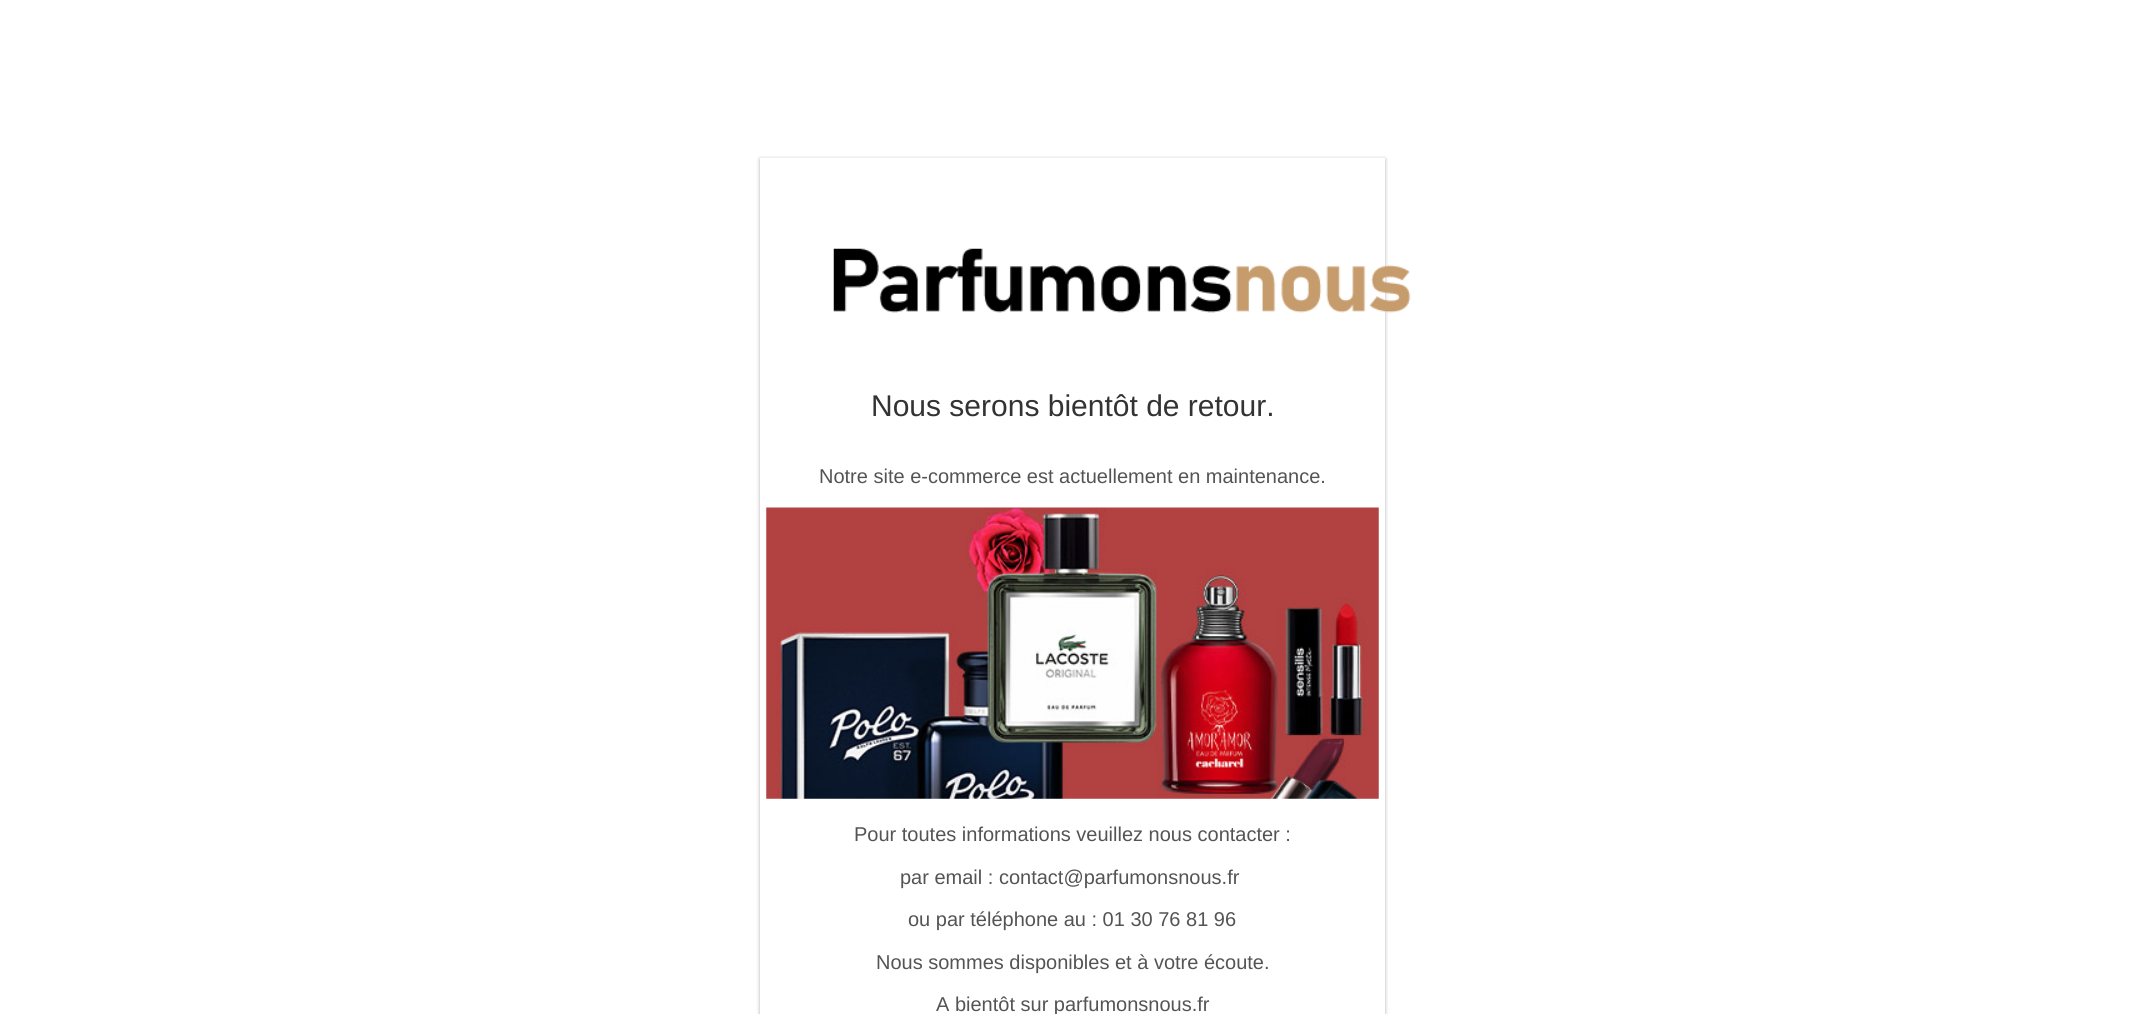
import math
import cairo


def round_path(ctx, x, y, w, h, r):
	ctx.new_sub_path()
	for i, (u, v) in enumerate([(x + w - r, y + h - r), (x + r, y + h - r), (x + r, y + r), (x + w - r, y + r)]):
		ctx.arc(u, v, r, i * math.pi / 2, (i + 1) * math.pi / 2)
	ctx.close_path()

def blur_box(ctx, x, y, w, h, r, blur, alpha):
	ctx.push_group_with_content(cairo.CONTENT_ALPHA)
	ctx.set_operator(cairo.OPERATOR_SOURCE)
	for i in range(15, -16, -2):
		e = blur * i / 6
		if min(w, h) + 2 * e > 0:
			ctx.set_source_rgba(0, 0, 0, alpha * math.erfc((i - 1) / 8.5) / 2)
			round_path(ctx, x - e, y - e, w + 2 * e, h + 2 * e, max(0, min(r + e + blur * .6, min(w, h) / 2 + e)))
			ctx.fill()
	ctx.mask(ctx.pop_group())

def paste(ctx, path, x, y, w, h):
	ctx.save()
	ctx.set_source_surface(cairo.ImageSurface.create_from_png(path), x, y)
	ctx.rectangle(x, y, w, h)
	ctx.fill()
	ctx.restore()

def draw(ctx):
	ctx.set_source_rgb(1, 1, 1)
	ctx.paint()
	ctx.save()
	ctx.set_fill_rule(cairo.FILL_RULE_EVEN_ODD)
	ctx.new_path()
	ctx.move_to(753, 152)
	ctx.line_to(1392, 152)
	ctx.line_to(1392, 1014)
	ctx.line_to(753, 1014)
	ctx.close_path()
	ctx.move_to(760, 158)
	ctx.line_to(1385, 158)
	ctx.line_to(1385, 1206)
	ctx.line_to(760, 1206)
	ctx.close_path()
	ctx.clip()
	ctx.set_source_rgb(0, 0, 0)
	blur_box(ctx, 760, 159, 625, 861, 0, 2, 0.3)
	ctx.restore()
	paste(ctx, 'media/1.png', 833, 248, 578, 65)
	ctx.select_font_face('Liberation Sans')
	ctx.set_font_size(30)
	ctx.set_source_rgb(0.2, 0.2, 0.2)
	ctx.move_to(871, 416)
	ctx.show_text('Nous serons bientôt de retour.')
	ctx.set_font_size(20)
	ctx.set_source_rgb(0.333, 0.329, 0.329)
	ctx.move_to(819, 483)
	ctx.show_text('Notre site e-commerce est actuellement en maintenance.')
	paste(ctx, 'media/2.png', 766, 507, 613, 292)
	for x, y, s in [
		(854, 841, 'Pour toutes informations veuillez nous contacter :'),
		(900, 884, 'par email : contact@parfumonsnous.fr'),
		(908, 926, 'ou par téléphone au : 01 30 76 81 96'),
		(876, 969, 'Nous sommes disponibles et à votre écoute.'),
		(936, 1011, 'A bientôt sur parfumonsnous.fr'),
	]:
		ctx.move_to(x, y)
		ctx.show_text(s)


surface = cairo.ImageSurface(cairo.FORMAT_RGB24, 2144, 1014)
ctx = cairo.Context(surface)
options = cairo.FontOptions()
options.set_hint_metrics(cairo.HINT_METRICS_OFF)
options.set_hint_style(cairo.HINT_STYLE_NONE)
ctx.set_font_options(options)
ctx.set_miter_limit(4)
draw(ctx)
surface.write_to_png('image.png')
